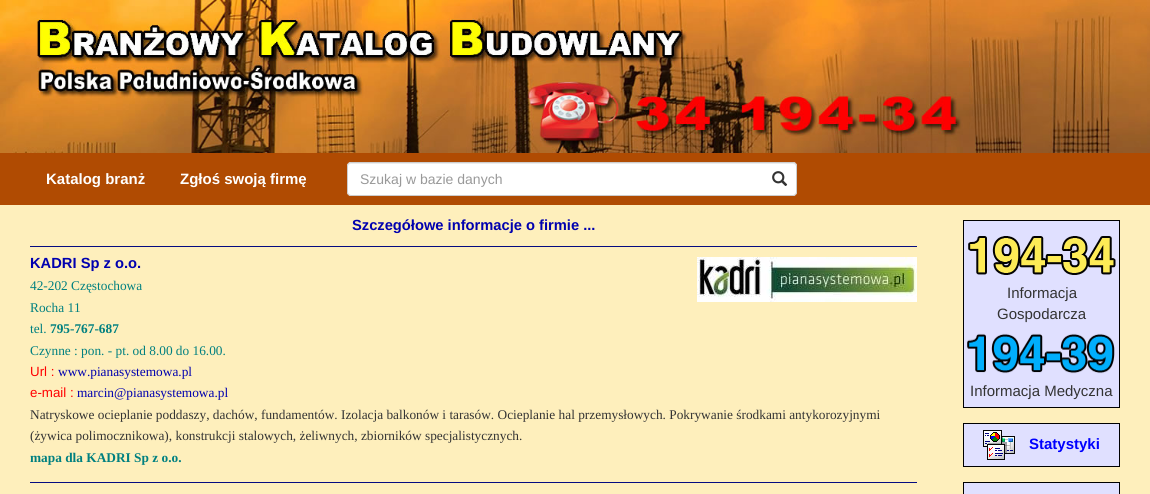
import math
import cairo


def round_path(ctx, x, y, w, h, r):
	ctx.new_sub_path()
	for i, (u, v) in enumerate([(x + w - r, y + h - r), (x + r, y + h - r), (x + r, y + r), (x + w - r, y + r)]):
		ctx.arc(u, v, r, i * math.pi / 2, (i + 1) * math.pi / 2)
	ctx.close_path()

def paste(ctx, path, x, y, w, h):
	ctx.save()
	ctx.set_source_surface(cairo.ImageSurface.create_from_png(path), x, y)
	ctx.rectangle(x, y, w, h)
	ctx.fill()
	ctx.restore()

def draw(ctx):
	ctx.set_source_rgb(0.996, 0.937, 0.737)
	ctx.paint()
	paste(ctx, 'media/1.png', 0, 0, 1150, 153)
	ctx.set_source_rgb(0.69, 0.294, 0.008)
	ctx.rectangle(0, 153, 1150, 52)
	ctx.fill()
	ctx.select_font_face('Liberation Sans', cairo.FONT_SLANT_NORMAL, cairo.FONT_WEIGHT_BOLD)
	ctx.set_font_size(15)
	ctx.set_source_rgb(1, 1, 1)
	ctx.move_to(46, 184)
	ctx.show_text('Katalog branż')
	ctx.move_to(180, 184)
	ctx.show_text('Zgłoś swoją firmę')
	round_path(ctx, 347, 162, 450, 34, 4)
	ctx.fill()
	ctx.set_source_rgb(0.925, 0.925, 0.925)
	ctx.new_path()
	ctx.move_to(351, 164)
	ctx.line_to(793, 164)
	ctx.curve_to(795, 164, 796, 165, 796, 167)
	ctx.line_to(796, 165)
	ctx.line_to(794, 163)
	ctx.line_to(351, 163)
	ctx.curve_to(349, 163, 348, 165, 348, 167)
	ctx.curve_to(348, 165, 349, 164, 351, 164)
	ctx.close_path()
	ctx.fill()
	round_path(ctx, 347.5, 162.5, 449, 33, 3.5)
	ctx.set_source_rgb(0.8, 0.8, 0.8)
	ctx.set_line_width(1)
	ctx.stroke()
	ctx.select_font_face('Liberation Sans')
	ctx.set_font_size(14)
	ctx.set_source_rgb(0.6, 0.6, 0.6)
	ctx.move_to(360, 184)
	ctx.show_text('Szukaj w bazie danych')
	paste(ctx, 'media/2.png', 772, 171, 16, 15)
	ctx.select_font_face('Liberation Sans', cairo.FONT_SLANT_NORMAL, cairo.FONT_WEIGHT_BOLD)
	ctx.set_font_size(14.7)
	ctx.set_source_rgb(0, 0, 0.686)
	ctx.move_to(352, 230)
	ctx.show_text('Szczegółowe informacje o firmie ...')
	ctx.set_source_rgb(0.02, 0.043, 0.502)
	ctx.rectangle(30, 246, 887, 1)
	ctx.fill()
	ctx.set_source_rgb(0, 0, 0.686)
	ctx.move_to(30, 268)
	ctx.show_text('KADRI Sp z o.o.')
	paste(ctx, 'media/3.png', 697, 257, 220, 45)
	ctx.select_font_face('Liberation Serif')
	ctx.set_font_size(13.33)
	ctx.set_source_rgb(0, 0.502, 0.502)
	for x, y, s in [
		(30, 290, '42-202 Częstochowa'),
		(30, 312, 'Rocha 11'),
		(30, 333, 'tel.'),
	]:
		ctx.move_to(x, y)
		ctx.show_text(s)
	ctx.select_font_face('Liberation Serif', cairo.FONT_SLANT_NORMAL, cairo.FONT_WEIGHT_BOLD)
	ctx.move_to(50, 333)
	ctx.show_text('795-767-687')
	ctx.select_font_face('Liberation Serif')
	ctx.move_to(30, 355)
	ctx.show_text('Czynne : pon. - pt. od 8.00 do 16.00.')
	ctx.select_font_face('Liberation Sans')
	ctx.set_source_rgb(1, 0, 0)
	ctx.move_to(30, 376)
	ctx.show_text('Url :')
	ctx.select_font_face('Liberation Serif')
	ctx.set_source_rgb(0, 0, 0.686)
	ctx.move_to(58, 376)
	ctx.show_text('www.pianasystemowa.pl')
	ctx.select_font_face('Liberation Sans')
	ctx.set_source_rgb(1, 0, 0)
	ctx.move_to(30, 397)
	ctx.show_text('e-mail :')
	ctx.select_font_face('Liberation Serif')
	ctx.set_source_rgb(0, 0, 0.686)
	ctx.move_to(77, 397)
	ctx.show_text('marcin@pianasystemowa.pl')
	ctx.set_source_rgb(0.2, 0.2, 0.2)
	ctx.move_to(30, 419)
	ctx.show_text('Natryskowe ocieplanie poddaszy, dachów, fundamentów. Izolacja balkonów i tarasów. Ocieplanie hal przemysłowych. Pokrywanie środkami antykorozyjnymi')
	ctx.move_to(30, 440)
	ctx.show_text('(żywica polimocznikowa), konstrukcji stalowych, żeliwnych, zbiorników specjalistycznych.')
	ctx.select_font_face('Liberation Serif', cairo.FONT_SLANT_NORMAL, cairo.FONT_WEIGHT_BOLD)
	ctx.set_source_rgb(0, 0.502, 0.502)
	ctx.move_to(30, 462)
	ctx.show_text('mapa dla KADRI Sp z o.o.')
	ctx.set_source_rgb(0.02, 0.043, 0.502)
	ctx.rectangle(30, 482, 887, 1)
	ctx.fill()
	ctx.set_source_rgb(0.878, 0.878, 1)
	ctx.rectangle(963.5, 220.5, 156, 187)
	ctx.fill_preserve()
	ctx.set_source_rgb(0, 0, 0)
	ctx.stroke()
	paste(ctx, 'media/4.png', 968, 236, 148, 39)
	ctx.select_font_face('Liberation Sans')
	ctx.set_font_size(15)
	ctx.set_source_rgb(0.2, 0.2, 0.2)
	ctx.move_to(1007, 298)
	ctx.show_text('Informacja')
	ctx.move_to(997, 319)
	ctx.show_text('Gospodarcza')
	paste(ctx, 'media/5.png', 967, 333, 148, 41)
	ctx.move_to(970, 396)
	ctx.show_text('Informacja Medyczna')
	ctx.set_source_rgb(0.878, 0.878, 1)
	ctx.rectangle(963.5, 423.5, 156, 43)
	ctx.fill_preserve()
	ctx.set_source_rgb(0, 0, 0)
	ctx.stroke()
	paste(ctx, 'media/6.png', 983, 430, 32, 30)
	ctx.select_font_face('Liberation Sans', cairo.FONT_SLANT_NORMAL, cairo.FONT_WEIGHT_BOLD)
	ctx.set_source_rgb(0, 0, 1)
	ctx.move_to(1029, 449)
	ctx.show_text('Statystyki')
	ctx.set_source_rgb(0.878, 0.878, 1)
	ctx.rectangle(963.5, 482.5, 156, 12)
	ctx.fill_preserve()
	ctx.set_source_rgb(0, 0, 0)
	ctx.stroke()


surface = cairo.ImageSurface(cairo.FORMAT_RGB24, 1150, 494)
ctx = cairo.Context(surface)
options = cairo.FontOptions()
options.set_hint_metrics(cairo.HINT_METRICS_OFF)
options.set_hint_style(cairo.HINT_STYLE_NONE)
ctx.set_font_options(options)
ctx.set_miter_limit(4)
draw(ctx)
surface.write_to_png('image.png')
